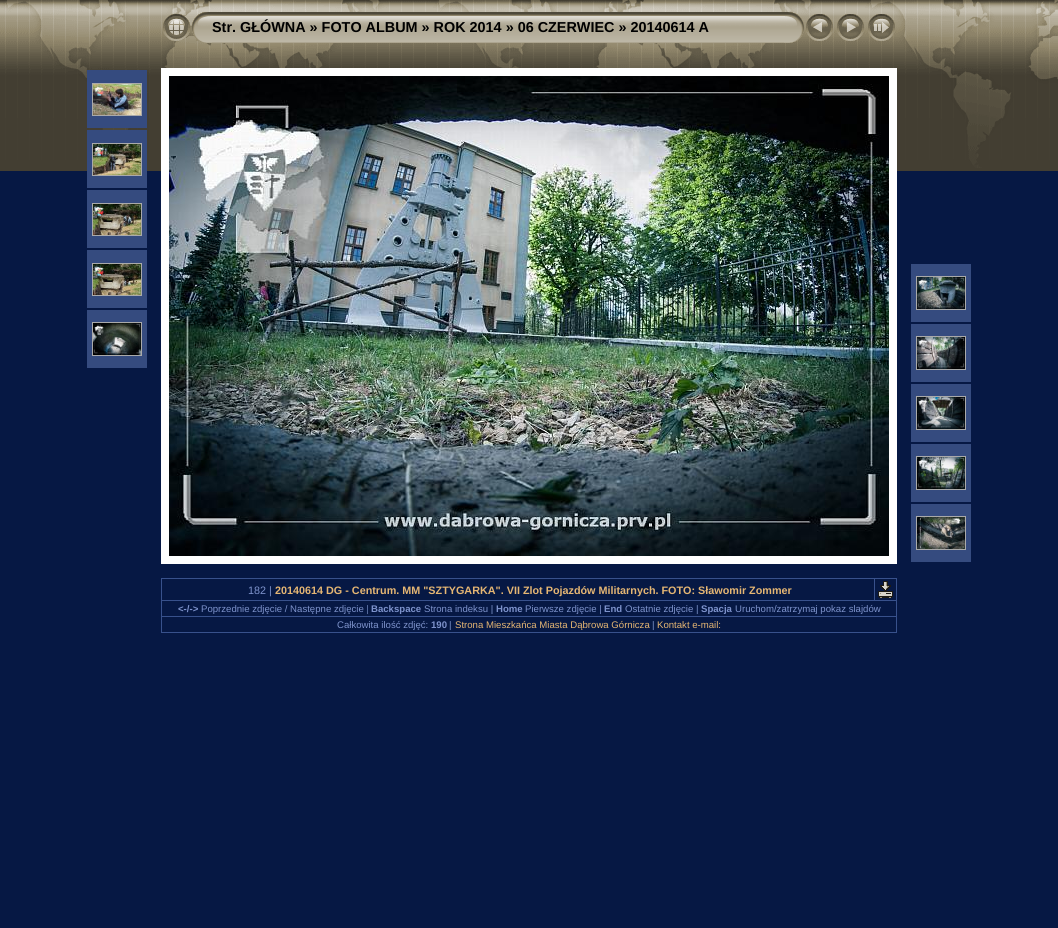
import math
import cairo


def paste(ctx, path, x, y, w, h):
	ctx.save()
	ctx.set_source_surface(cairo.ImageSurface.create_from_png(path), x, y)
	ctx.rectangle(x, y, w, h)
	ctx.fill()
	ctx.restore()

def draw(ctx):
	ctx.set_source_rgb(0.024, 0.094, 0.267)
	ctx.paint()
	paste(ctx, 'media/1.png', 0, 0, 1058, 171)
	paste(ctx, 'media/2.png', 163, 14, 27, 27)
	paste(ctx, 'media/3.png', 192, 12, 20, 31)
	paste(ctx, 'media/4.png', 212, 12, 572, 31)
	ctx.select_font_face('Liberation Sans', cairo.FONT_SLANT_NORMAL, cairo.FONT_WEIGHT_BOLD)
	ctx.set_font_size(14.4)
	ctx.set_source_rgb(0, 0, 0)
	ctx.move_to(212, 32)
	ctx.show_text('Str. GŁÓWNA » FOTO ALBUM » ROK 2014 » 06 CZERWIEC » 20140614 A')
	paste(ctx, 'media/5.png', 784, 12, 20, 31)
	paste(ctx, 'media/6.png', 806, 14, 27, 27)
	paste(ctx, 'media/7.png', 837, 14, 27, 27)
	paste(ctx, 'media/8.png', 868, 14, 27, 27)
	ctx.set_source_rgb(0.208, 0.294, 0.498)
	ctx.rectangle(87, 70, 60, 58)
	ctx.fill()
	ctx.rectangle(92.5, 83.5, 49, 32)
	ctx.set_source_rgb(0.667, 0.667, 0.667)
	ctx.set_line_width(1)
	ctx.stroke()
	paste(ctx, 'media/9.png', 93, 84, 48, 31)
	ctx.set_source_rgb(0.208, 0.294, 0.498)
	ctx.rectangle(87, 130, 60, 58)
	ctx.fill()
	ctx.rectangle(92.5, 143.5, 49, 32)
	ctx.set_source_rgb(0.667, 0.667, 0.667)
	ctx.stroke()
	paste(ctx, 'media/10.png', 93, 144, 48, 31)
	ctx.set_source_rgb(0.208, 0.294, 0.498)
	ctx.rectangle(87, 190, 60, 58)
	ctx.fill()
	ctx.rectangle(92.5, 203.5, 49, 32)
	ctx.set_source_rgb(0.667, 0.667, 0.667)
	ctx.stroke()
	paste(ctx, 'media/11.png', 93, 204, 48, 31)
	ctx.set_source_rgb(0.208, 0.294, 0.498)
	ctx.rectangle(87, 250, 60, 58)
	ctx.fill()
	ctx.rectangle(92.5, 263.5, 49, 32)
	ctx.set_source_rgb(0.667, 0.667, 0.667)
	ctx.stroke()
	paste(ctx, 'media/12.png', 93, 264, 48, 31)
	ctx.set_source_rgb(0.208, 0.294, 0.498)
	ctx.rectangle(87, 310, 60, 58)
	ctx.fill()
	ctx.rectangle(92.5, 322.5, 49, 33)
	ctx.set_source_rgb(0.667, 0.667, 0.667)
	ctx.stroke()
	paste(ctx, 'media/13.png', 93, 323, 48, 32)
	ctx.rectangle(165, 72, 728, 488)
	ctx.set_source_rgb(1, 1, 1)
	ctx.set_line_width(8)
	ctx.stroke()
	paste(ctx, 'media/14.png', 169, 76, 720, 480)
	ctx.set_source_rgb(0.208, 0.294, 0.498)
	ctx.rectangle(911, 264, 60, 58)
	ctx.fill()
	ctx.rectangle(916.5, 276.5, 49, 33)
	ctx.set_source_rgb(0.667, 0.667, 0.667)
	ctx.set_line_width(1)
	ctx.stroke()
	paste(ctx, 'media/15.png', 917, 277, 48, 32)
	ctx.set_source_rgb(0.208, 0.294, 0.498)
	ctx.rectangle(911, 324, 60, 58)
	ctx.fill()
	ctx.rectangle(916.5, 336.5, 49, 33)
	ctx.set_source_rgb(0.667, 0.667, 0.667)
	ctx.stroke()
	paste(ctx, 'media/16.png', 917, 337, 48, 32)
	ctx.set_source_rgb(0.208, 0.294, 0.498)
	ctx.rectangle(911, 384, 60, 58)
	ctx.fill()
	ctx.rectangle(916.5, 396.5, 49, 33)
	ctx.set_source_rgb(0.667, 0.667, 0.667)
	ctx.stroke()
	paste(ctx, 'media/17.png', 917, 397, 48, 32)
	ctx.set_source_rgb(0.208, 0.294, 0.498)
	ctx.rectangle(911, 444, 60, 58)
	ctx.fill()
	ctx.rectangle(916.5, 456.5, 49, 33)
	ctx.set_source_rgb(0.667, 0.667, 0.667)
	ctx.stroke()
	paste(ctx, 'media/18.png', 917, 457, 48, 32)
	ctx.set_source_rgb(0.208, 0.294, 0.498)
	ctx.rectangle(911, 504, 60, 58)
	ctx.fill()
	ctx.rectangle(916.5, 516.5, 49, 33)
	ctx.set_source_rgb(0.667, 0.667, 0.667)
	ctx.stroke()
	paste(ctx, 'media/19.png', 917, 517, 48, 32)
	ctx.set_source_rgb(0.22, 0.318, 0.549)
	ctx.rectangle(874, 578, 23, 1)
	ctx.rectangle(161, 600, 736, 1)
	ctx.rectangle(874, 578, 1, 23)
	ctx.rectangle(161, 578, 714, 1)
	ctx.rectangle(161, 616, 736, 1)
	ctx.rectangle(896, 616, 1, 17)
	ctx.rectangle(161, 632, 736, 1)
	ctx.rectangle(161, 616, 1, 17)
	ctx.rectangle(161, 600, 1, 17)
	ctx.rectangle(161, 578, 1, 23)
	ctx.fill()
	ctx.select_font_face('Liberation Sans')
	ctx.set_font_size(10.8)
	ctx.set_source_rgb(0.494, 0.576, 0.8)
	ctx.move_to(248, 594)
	ctx.show_text('182 |')
	ctx.select_font_face('Liberation Sans', cairo.FONT_SLANT_NORMAL, cairo.FONT_WEIGHT_BOLD)
	ctx.set_source_rgb(0.898, 0.714, 0.451)
	ctx.move_to(275, 594)
	ctx.show_text('20140614 DG - Centrum. MM "SZTYGARKA". VII Zlot Pojazdów Militarnych. FOTO: Sławomir Zommer')
	ctx.set_source_rgb(0.22, 0.318, 0.549)
	ctx.rectangle(896, 600, 1, 17)
	ctx.fill()
	ctx.rectangle(896, 578, 1, 23)
	ctx.fill()
	paste(ctx, 'media/20.png', 878, 581, 15, 17)
	ctx.set_font_size(9.6)
	ctx.set_source_rgb(0.494, 0.576, 0.8)
	ctx.move_to(178, 612)
	ctx.show_text('<-/->')
	ctx.select_font_face('Liberation Sans')
	ctx.move_to(201, 612)
	ctx.show_text('Poprzednie zdjęcie / Następne zdjęcie |')
	ctx.select_font_face('Liberation Sans', cairo.FONT_SLANT_NORMAL, cairo.FONT_WEIGHT_BOLD)
	ctx.move_to(371, 612)
	ctx.show_text('Backspace')
	ctx.select_font_face('Liberation Sans')
	ctx.move_to(424, 612)
	ctx.show_text('Strona indeksu |')
	ctx.select_font_face('Liberation Sans', cairo.FONT_SLANT_NORMAL, cairo.FONT_WEIGHT_BOLD)
	ctx.move_to(496, 612)
	ctx.show_text('Home')
	ctx.select_font_face('Liberation Sans')
	ctx.move_to(525, 612)
	ctx.show_text('Pierwsze zdjęcie |')
	ctx.select_font_face('Liberation Sans', cairo.FONT_SLANT_NORMAL, cairo.FONT_WEIGHT_BOLD)
	ctx.move_to(604, 612)
	ctx.show_text('End')
	ctx.select_font_face('Liberation Sans')
	ctx.move_to(625, 612)
	ctx.show_text('Ostatnie zdjęcie |')
	ctx.select_font_face('Liberation Sans', cairo.FONT_SLANT_NORMAL, cairo.FONT_WEIGHT_BOLD)
	ctx.move_to(701, 612)
	ctx.show_text('Spacja')
	ctx.select_font_face('Liberation Sans')
	ctx.move_to(735, 612)
	ctx.show_text('Uruchom/zatrzymaj pokaz slajdów')
	ctx.move_to(337, 628)
	ctx.show_text('Całkowita ilość zdjęć:')
	ctx.select_font_face('Liberation Sans', cairo.FONT_SLANT_NORMAL, cairo.FONT_WEIGHT_BOLD)
	ctx.move_to(431, 628)
	ctx.show_text('190')
	ctx.select_font_face('Liberation Sans')
	ctx.move_to(449, 628)
	ctx.show_text('|')
	ctx.set_source_rgb(0.898, 0.714, 0.451)
	ctx.move_to(455, 628)
	ctx.show_text('Strona Mieszkańca Miasta Dąbrowa Górnicza')
	ctx.set_source_rgb(0.494, 0.576, 0.8)
	ctx.move_to(652, 628)
	ctx.show_text('|')
	ctx.set_source_rgb(0.898, 0.714, 0.451)
	ctx.move_to(657, 628)
	ctx.show_text('Kontakt e-mail:')


surface = cairo.ImageSurface(cairo.FORMAT_RGB24, 1058, 928)
ctx = cairo.Context(surface)
options = cairo.FontOptions()
options.set_hint_metrics(cairo.HINT_METRICS_OFF)
options.set_hint_style(cairo.HINT_STYLE_NONE)
ctx.set_font_options(options)
ctx.set_miter_limit(4)
draw(ctx)
surface.write_to_png('image.png')
